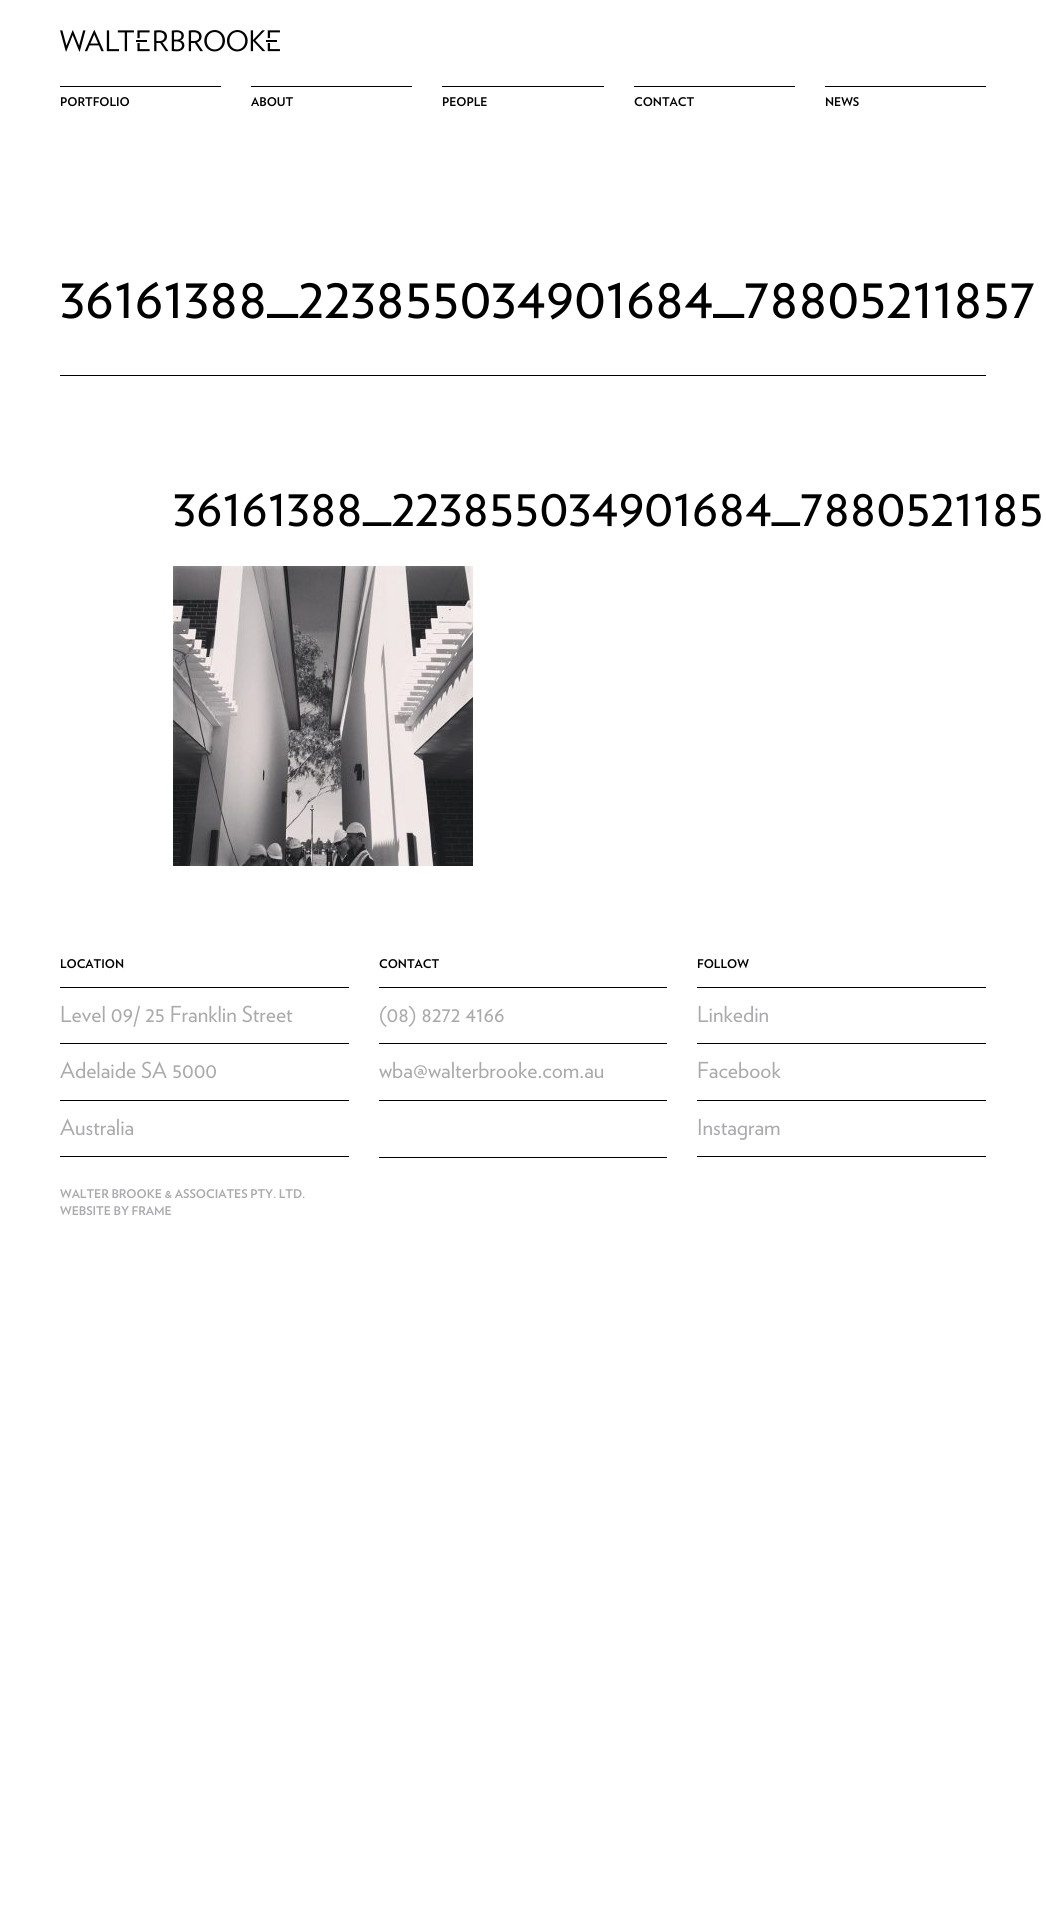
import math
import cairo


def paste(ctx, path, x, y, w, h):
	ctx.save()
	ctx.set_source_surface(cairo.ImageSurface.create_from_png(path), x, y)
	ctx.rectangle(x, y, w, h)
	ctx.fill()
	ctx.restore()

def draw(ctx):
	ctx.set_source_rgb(1, 1, 1)
	ctx.paint()
	paste(ctx, 'media/1.png', 60, 30, 220, 22)
	ctx.set_source_rgb(0, 0, 0)
	ctx.rectangle(60, 86, 161, 1)
	ctx.fill()
	ctx.select_font_face('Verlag', cairo.FONT_SLANT_NORMAL, cairo.FONT_WEIGHT_BOLD)
	ctx.set_font_size(12)
	ctx.move_to(60, 106)
	ctx.show_text('PORTFOLIO')
	ctx.rectangle(251, 86, 161, 1)
	ctx.fill()
	ctx.move_to(251, 106)
	ctx.show_text('ABOUT')
	ctx.rectangle(442, 86, 162, 1)
	ctx.fill()
	ctx.move_to(442, 106)
	ctx.show_text('PEOPLE')
	ctx.rectangle(634, 86, 161, 1)
	ctx.fill()
	ctx.move_to(634, 106)
	ctx.show_text('CONTACT')
	ctx.rectangle(825, 86, 161, 1)
	ctx.fill()
	ctx.move_to(825, 106)
	ctx.show_text('NEWS')
	ctx.select_font_face('Verlag')
	ctx.set_font_size(60)
	ctx.move_to(60, 318)
	ctx.show_text('36161388_223855034901684_78805211857')
	ctx.rectangle(60, 375, 926, 1)
	ctx.fill()
	ctx.set_font_size(55)
	ctx.move_to(173, 526)
	ctx.show_text('36161388_223855034901684_7880521185')
	paste(ctx, 'media/2.png', 173, 566, 300, 300)
	ctx.rectangle(60, 987, 289, 1)
	ctx.fill()
	ctx.select_font_face('Verlag', cairo.FONT_SLANT_NORMAL, cairo.FONT_WEIGHT_BOLD)
	ctx.set_font_size(12)
	ctx.move_to(60, 968)
	ctx.show_text('LOCATION')
	ctx.rectangle(60, 1043, 289, 1)
	ctx.fill()
	ctx.select_font_face('Verlag')
	ctx.set_font_size(22)
	ctx.set_source_rgb(0.667, 0.667, 0.682)
	ctx.move_to(60, 1022)
	ctx.show_text('Level 09/ 25 Franklin Street')
	ctx.set_source_rgb(0, 0, 0)
	ctx.rectangle(60, 1100, 289, 1)
	ctx.fill()
	ctx.set_source_rgb(0.667, 0.667, 0.682)
	ctx.move_to(60, 1078)
	ctx.show_text('Adelaide SA 5000')
	ctx.set_source_rgb(0, 0, 0)
	ctx.rectangle(60, 1156, 289, 1)
	ctx.fill()
	ctx.set_source_rgb(0.667, 0.667, 0.682)
	ctx.move_to(60, 1135)
	ctx.show_text('Australia')
	ctx.set_source_rgb(0, 0, 0)
	ctx.rectangle(379, 987, 288, 1)
	ctx.fill()
	ctx.select_font_face('Verlag', cairo.FONT_SLANT_NORMAL, cairo.FONT_WEIGHT_BOLD)
	ctx.set_font_size(12)
	ctx.move_to(379, 968)
	ctx.show_text('CONTACT')
	ctx.rectangle(379, 1043, 288, 1)
	ctx.fill()
	ctx.select_font_face('Verlag')
	ctx.set_font_size(22)
	ctx.set_source_rgb(0.667, 0.667, 0.682)
	ctx.move_to(379, 1022)
	ctx.show_text('(08) 8272 4166')
	ctx.set_source_rgb(0, 0, 0)
	ctx.rectangle(379, 1100, 288, 1)
	ctx.fill()
	ctx.set_source_rgb(0.667, 0.667, 0.682)
	ctx.move_to(379, 1078)
	ctx.show_text('wba@walterbrooke.com.au')
	ctx.set_source_rgb(0, 0, 0)
	ctx.rectangle(379, 1157, 288, 1)
	ctx.fill()
	ctx.rectangle(697, 987, 289, 1)
	ctx.fill()
	ctx.select_font_face('Verlag', cairo.FONT_SLANT_NORMAL, cairo.FONT_WEIGHT_BOLD)
	ctx.set_font_size(12)
	ctx.move_to(697, 968)
	ctx.show_text('FOLLOW')
	ctx.rectangle(697, 1043, 289, 1)
	ctx.fill()
	ctx.select_font_face('Verlag')
	ctx.set_font_size(22)
	ctx.set_source_rgb(0.667, 0.667, 0.682)
	ctx.move_to(697, 1022)
	ctx.show_text('Linkedin')
	ctx.set_source_rgb(0, 0, 0)
	ctx.rectangle(697, 1100, 289, 1)
	ctx.fill()
	ctx.set_source_rgb(0.667, 0.667, 0.682)
	ctx.move_to(697, 1078)
	ctx.show_text('Facebook')
	ctx.set_source_rgb(0, 0, 0)
	ctx.rectangle(697, 1156, 289, 1)
	ctx.fill()
	ctx.set_source_rgb(0.667, 0.667, 0.682)
	ctx.move_to(697, 1135)
	ctx.show_text('Instagram')
	ctx.select_font_face('Verlag', cairo.FONT_SLANT_NORMAL, cairo.FONT_WEIGHT_BOLD)
	ctx.set_font_size(12)
	ctx.move_to(60, 1198)
	ctx.show_text('WALTER BROOKE & ASSOCIATES PTY. LTD.')
	ctx.move_to(60, 1215)
	ctx.show_text('WEBSITE BY FRAME')


surface = cairo.ImageSurface(cairo.FORMAT_RGB24, 1046, 1930)
ctx = cairo.Context(surface)
options = cairo.FontOptions()
options.set_hint_metrics(cairo.HINT_METRICS_OFF)
options.set_hint_style(cairo.HINT_STYLE_NONE)
ctx.set_font_options(options)
ctx.set_miter_limit(4)
draw(ctx)
surface.write_to_png('image.png')
